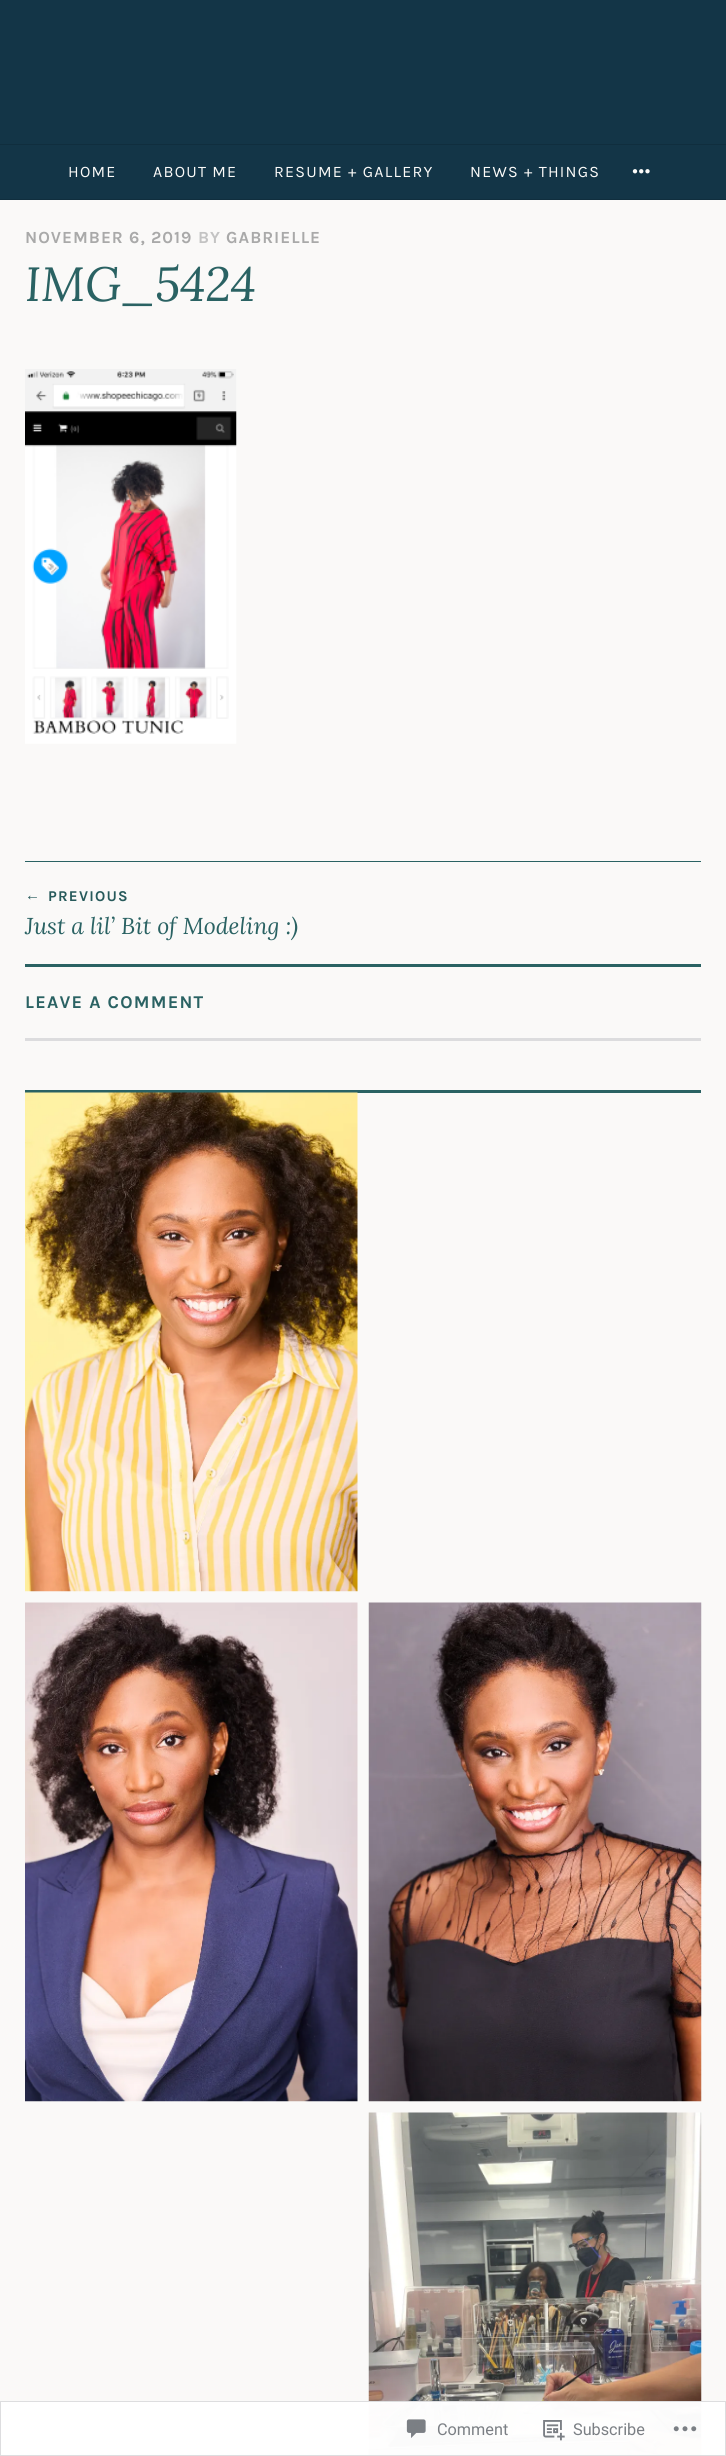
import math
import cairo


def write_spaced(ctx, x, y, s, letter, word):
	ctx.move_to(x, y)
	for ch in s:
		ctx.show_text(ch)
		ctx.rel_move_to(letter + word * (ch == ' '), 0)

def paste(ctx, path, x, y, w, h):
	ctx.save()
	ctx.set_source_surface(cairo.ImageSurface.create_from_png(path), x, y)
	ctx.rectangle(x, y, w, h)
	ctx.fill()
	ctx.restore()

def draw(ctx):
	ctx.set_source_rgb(0.98, 0.976, 0.969)
	ctx.paint()
	ctx.set_source_rgb(0.075, 0.208, 0.278)
	ctx.rectangle(0, 0, 726, 199)
	ctx.fill()
	ctx.set_source_rgb(0.063, 0.18, 0.243)
	ctx.rectangle(0, 144, 726, 1)
	ctx.rectangle(0, 199, 726, 1)
	ctx.fill()
	ctx.select_font_face('Karla')
	ctx.set_font_size(16)
	ctx.set_source_rgb(0.988, 0.984, 0.976)
	for x, y, s in [
		(68, 177, 'HOME'),
		(153, 177, 'ABOUT ME'),
		(274, 177, 'RESUME + GALLERY'),
		(470, 177, 'NEWS + THINGS'),
	]:
		write_spaced(ctx, x, y, s, 1.25, 0)
	paste(ctx, 'media/1.png', 632, 169, 18, 5)
	ctx.select_font_face('Karla', cairo.FONT_SLANT_NORMAL, cairo.FONT_WEIGHT_BOLD)
	ctx.set_font_size(17)
	ctx.set_source_rgb(0.663, 0.663, 0.663)
	write_spaced(ctx, 25, 243, 'NOVEMBER 6, 2019', 1, 0)
	ctx.set_source_rgb(0.765, 0.765, 0.765)
	write_spaced(ctx, 198, 243, 'BY', 1, 0)
	ctx.set_source_rgb(0.663, 0.663, 0.663)
	write_spaced(ctx, 226, 243, 'GABRIELLE', 1, 0)
	ctx.select_font_face('Lora', cairo.FONT_SLANT_ITALIC)
	ctx.set_font_size(48)
	ctx.set_source_rgb(0.165, 0.384, 0.388)
	ctx.move_to(25, 301)
	ctx.show_text('IMG_5424')
	paste(ctx, 'media/2.png', 25, 369, 212, 375)
	ctx.rectangle(25, 861, 676, 1)
	ctx.fill()
	ctx.rectangle(25, 964, 676, 3)
	ctx.fill()
	ctx.select_font_face('Liberation Serif')
	ctx.set_font_size(15)
	ctx.set_source_rgb(0.153, 0.353, 0.357)
	write_spaced(ctx, 25, 900, '←', 1.25, 0)
	ctx.select_font_face('Karla', cairo.FONT_SLANT_NORMAL, cairo.FONT_WEIGHT_BOLD)
	write_spaced(ctx, 48, 901, 'PREVIOUS', 1.25, 0)
	ctx.select_font_face('Lora', cairo.FONT_SLANT_ITALIC)
	ctx.set_font_size(23)
	ctx.set_source_rgb(0.165, 0.384, 0.388)
	ctx.move_to(25, 934)
	ctx.show_text('Just a lil’ Bit of Modeling :)')
	ctx.select_font_face('Karla', cairo.FONT_SLANT_NORMAL, cairo.FONT_WEIGHT_BOLD)
	ctx.set_font_size(18)
	write_spaced(ctx, 25, 1008, 'LEAVE A COMMENT', 1.25, 0)
	ctx.set_source_rgb(0.863, 0.863, 0.871)
	ctx.rectangle(25, 1038, 676, 3)
	ctx.fill()
	ctx.set_source_rgb(0.165, 0.384, 0.388)
	ctx.rectangle(25, 1090, 676, 3)
	ctx.fill()
	paste(ctx, 'media/3.png', 25, 1092, 333, 500)
	paste(ctx, 'media/4.png', 25, 1602, 333, 500)
	paste(ctx, 'media/5.png', 368, 1602, 334, 500)
	paste(ctx, 'media/6.png', 368, 2112, 334, 344)
	ctx.set_source_rgba(1, 1, 1, 0.98)
	ctx.rectangle(0, 2401, 726, 55)
	ctx.fill()
	ctx.rectangle(0.5, 2401.5, 725, 54)
	ctx.set_source_rgba(0.863, 0.863, 0.871, 0.98)
	ctx.set_line_width(1)
	ctx.stroke()
	paste(ctx, 'media/7.png', 406, 2419, 20, 19)
	ctx.select_font_face('Roboto')
	ctx.set_font_size(16.25)
	ctx.set_source_rgb(0.482, 0.498, 0.518)
	ctx.move_to(437, 2435)
	ctx.show_text('Comment')
	paste(ctx, 'media/8.png', 543, 2420, 22, 21)
	ctx.move_to(573, 2435)
	ctx.show_text('Subscribe')
	paste(ctx, 'media/9.png', 673, 2426, 24, 6)


surface = cairo.ImageSurface(cairo.FORMAT_RGB24, 726, 2456)
ctx = cairo.Context(surface)
options = cairo.FontOptions()
options.set_hint_metrics(cairo.HINT_METRICS_OFF)
options.set_hint_style(cairo.HINT_STYLE_NONE)
ctx.set_font_options(options)
ctx.set_miter_limit(4)
draw(ctx)
surface.write_to_png('image.png')
